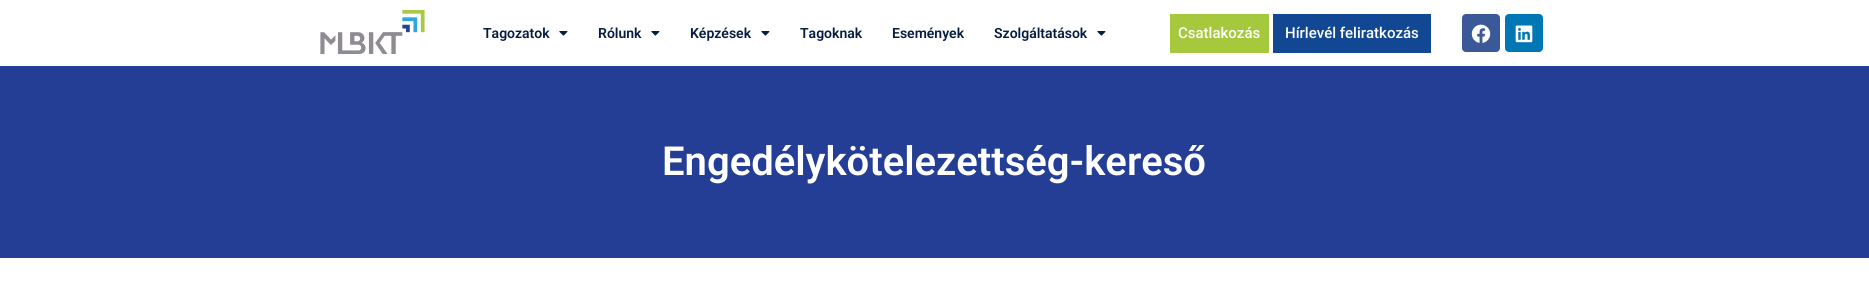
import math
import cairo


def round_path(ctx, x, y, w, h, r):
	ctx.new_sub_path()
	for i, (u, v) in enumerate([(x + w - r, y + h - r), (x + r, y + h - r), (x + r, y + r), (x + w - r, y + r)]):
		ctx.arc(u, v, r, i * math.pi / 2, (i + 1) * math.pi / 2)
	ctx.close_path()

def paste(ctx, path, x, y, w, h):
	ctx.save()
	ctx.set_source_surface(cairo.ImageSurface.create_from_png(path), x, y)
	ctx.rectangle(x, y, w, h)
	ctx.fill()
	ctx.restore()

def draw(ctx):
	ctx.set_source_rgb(1, 1, 1)
	ctx.paint()
	paste(ctx, 'media/1.png', 320, 10, 105, 44)
	ctx.select_font_face('Roboto SemiBold')
	ctx.set_font_size(14)
	ctx.set_source_rgb(0.027, 0.11, 0.255)
	ctx.move_to(483, 38)
	ctx.show_text('Tagozatok')
	paste(ctx, 'media/2.png', 559, 31, 9, 5)
	ctx.move_to(598, 38)
	ctx.show_text('Rólunk')
	paste(ctx, 'media/2.png', 651, 31, 9, 5)
	ctx.move_to(690, 38)
	ctx.show_text('Képzések')
	paste(ctx, 'media/2.png', 761, 31, 9, 5)
	for x, y, s in [
		(800, 38, 'Tagoknak'),
		(892, 38, 'Események'),
		(994, 38, 'Szolgáltatások'),
	]:
		ctx.move_to(x, y)
		ctx.show_text(s)
	paste(ctx, 'media/2.png', 1097, 31, 9, 5)
	ctx.set_source_rgb(0.647, 0.784, 0.239)
	ctx.rectangle(1170, 14, 99, 39)
	ctx.fill()
	ctx.select_font_face('Roboto Medium')
	ctx.set_font_size(15)
	ctx.set_source_rgb(1, 1, 1)
	ctx.move_to(1178, 38)
	ctx.show_text('Csatlakozás')
	ctx.set_source_rgb(0.071, 0.282, 0.576)
	ctx.rectangle(1273, 14, 158, 39)
	ctx.fill()
	ctx.set_source_rgb(1, 1, 1)
	ctx.move_to(1285, 38)
	ctx.show_text('Hírlevél feliratkozás')
	ctx.set_source_rgb(0.231, 0.349, 0.596)
	round_path(ctx, 1462, 14, 38, 38, 4)
	ctx.fill()
	paste(ctx, 'media/3.png', 1471, 24, 20, 19)
	ctx.set_source_rgb(0, 0.467, 0.71)
	round_path(ctx, 1505, 14, 38, 38, 4)
	ctx.fill()
	paste(ctx, 'media/4.png', 1515, 25, 18, 18)
	ctx.set_source_rgb(0.137, 0.243, 0.58)
	ctx.rectangle(0, 66, 1869, 192)
	ctx.fill()
	ctx.select_font_face('Roboto SemiBold')
	ctx.set_font_size(40)
	ctx.set_source_rgb(1, 1, 1)
	ctx.move_to(662, 175)
	ctx.show_text('Engedélykötelezettség-kereső')


surface = cairo.ImageSurface(cairo.FORMAT_RGB24, 1869, 302)
ctx = cairo.Context(surface)
options = cairo.FontOptions()
options.set_hint_metrics(cairo.HINT_METRICS_OFF)
options.set_hint_style(cairo.HINT_STYLE_NONE)
ctx.set_font_options(options)
ctx.set_miter_limit(4)
draw(ctx)
surface.write_to_png('image.png')
